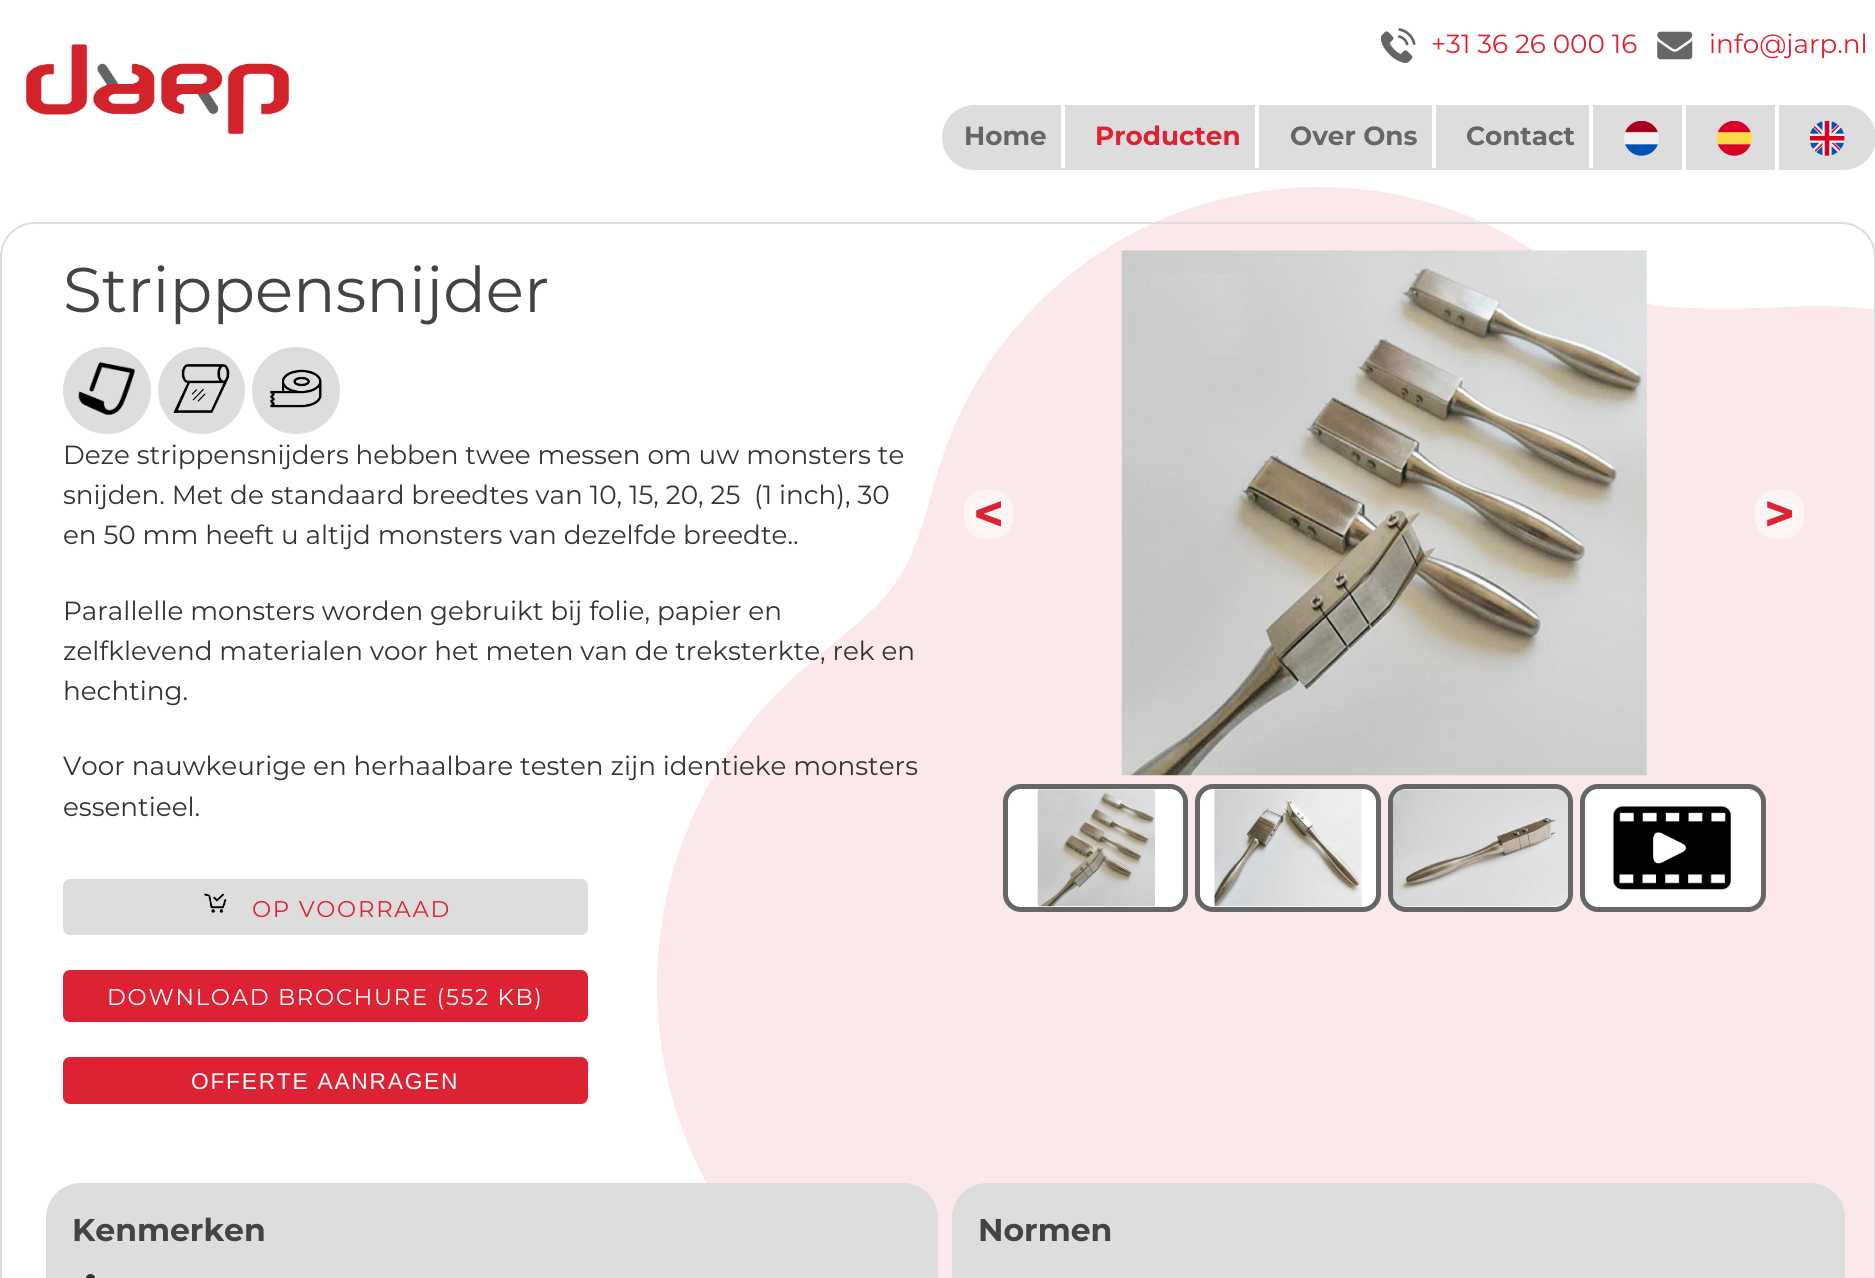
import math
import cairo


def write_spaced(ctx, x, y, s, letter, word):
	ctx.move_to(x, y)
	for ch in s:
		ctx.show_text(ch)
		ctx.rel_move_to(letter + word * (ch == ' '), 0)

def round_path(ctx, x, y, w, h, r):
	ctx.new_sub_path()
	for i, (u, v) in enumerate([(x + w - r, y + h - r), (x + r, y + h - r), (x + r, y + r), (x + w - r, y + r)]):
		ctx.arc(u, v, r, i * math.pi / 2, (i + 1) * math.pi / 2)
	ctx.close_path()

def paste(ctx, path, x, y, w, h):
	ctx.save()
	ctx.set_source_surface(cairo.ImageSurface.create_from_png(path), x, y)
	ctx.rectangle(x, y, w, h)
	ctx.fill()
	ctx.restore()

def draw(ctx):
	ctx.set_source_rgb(1, 1, 1)
	ctx.paint()
	paste(ctx, 'media/1.png', 26, 44, 263, 90)
	ctx.set_source_rgb(0.867, 0.867, 0.867)
	round_path(ctx, 942, 105, 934, 65, 32.5)
	ctx.fill()
	ctx.set_source_rgb(1, 1, 1)
	ctx.rectangle(1061, 105, 4, 63)
	ctx.fill()
	ctx.select_font_face('Montserrat', cairo.FONT_SLANT_NORMAL, cairo.FONT_WEIGHT_BOLD)
	ctx.set_font_size(26.25)
	ctx.set_source_rgb(0.4, 0.4, 0.4)
	ctx.move_to(964, 145)
	ctx.show_text('Home')
	ctx.set_source_rgb(1, 1, 1)
	ctx.rectangle(1255, 105, 4, 63)
	ctx.fill()
	ctx.set_source_rgb(0.867, 0.133, 0.2)
	ctx.move_to(1095, 145)
	ctx.show_text('Producten')
	ctx.set_source_rgb(1, 1, 1)
	ctx.rectangle(1432, 105, 4, 63)
	ctx.fill()
	ctx.set_source_rgb(0.4, 0.4, 0.4)
	ctx.move_to(1290, 145)
	ctx.show_text('Over Ons')
	ctx.set_source_rgb(1, 1, 1)
	ctx.rectangle(1589, 105, 4, 63)
	ctx.fill()
	ctx.set_source_rgb(0.4, 0.4, 0.4)
	ctx.move_to(1466, 145)
	ctx.show_text('Contact')
	ctx.set_source_rgb(1, 1, 1)
	ctx.rectangle(1682, 105, 4, 65)
	ctx.fill()
	paste(ctx, 'media/2.png', 1624, 121, 35, 35)
	ctx.rectangle(1775, 105, 4, 65)
	ctx.fill()
	paste(ctx, 'media/3.png', 1717, 121, 35, 35)
	paste(ctx, 'media/4.png', 1810, 121, 35, 35)
	paste(ctx, 'media/5.png', 1381, 28, 35, 35)
	ctx.select_font_face('Montserrat')
	ctx.set_source_rgb(0.867, 0.133, 0.2)
	ctx.move_to(1431, 53)
	ctx.show_text('+31 36 26 000 16')
	paste(ctx, 'media/6.png', 1657, 31, 36, 29)
	ctx.move_to(1709, 53)
	ctx.show_text('info@jarp.nl')
	ctx.set_source_rgb(0.984, 0.91, 0.918)
	ctx.set_fill_rule(cairo.FILL_RULE_EVEN_ODD)
	ctx.new_path()
	ctx.move_to(1812, 306)
	ctx.line_to(1786, 307)
	ctx.curve_to(1630, 313, 1618, 303, 1534, 251)
	ctx.curve_to(1472, 210, 1398, 187, 1319, 187)
	ctx.curve_to(1135, 187, 980, 312, 935, 482)
	ctx.curve_to(907, 580, 900, 591, 813, 660)
	ctx.line_to(813, 661)
	ctx.curve_to(718, 737, 657, 854, 657, 986)
	ctx.curve_to(657, 1216, 843, 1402, 1073, 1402)
	ctx.curve_to(1112, 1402, 1149, 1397, 1184, 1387)
	ctx.curve_to(1304, 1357, 1333, 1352, 1491, 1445)
	ctx.curve_to(1585, 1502, 1694, 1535, 1812, 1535)
	ctx.curve_to(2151, 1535, 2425, 1260, 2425, 921)
	ctx.curve_to(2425, 581, 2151, 306, 1812, 306)
	ctx.fill()
	round_path(ctx, 1, 223, 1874, 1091, 34)
	ctx.set_source_rgb(0.867, 0.867, 0.867)
	ctx.stroke()
	ctx.set_font_size(63)
	ctx.set_source_rgb(0.267, 0.267, 0.267)
	ctx.move_to(63, 312)
	ctx.show_text('Strippensnijder')
	ctx.set_source_rgb(0.867, 0.867, 0.867)
	round_path(ctx, 63, 347, 88, 87, 43.5)
	ctx.fill()
	paste(ctx, 'media/7.png', 78, 362, 57, 53)
	ctx.arc(201.5, 390.5, 43.5, 0, 2 * math.pi)
	ctx.fill()
	paste(ctx, 'media/8.png', 173, 364, 57, 49)
	round_path(ctx, 252, 347, 88, 87, 43.5)
	ctx.fill()
	paste(ctx, 'media/9.png', 270, 369, 52, 39)
	ctx.set_font_size(26.25)
	ctx.set_source_rgb(0.2, 0.2, 0.2)
	for x, y, s in [
		(63, 464, 'Deze strippensnijders hebben twee messen om uw monsters te'),
		(63, 504, 'snijden. Met de standaard breedtes van 10, 15, 20, 25  (1 inch), 30'),
		(63, 544, 'en 50 mm heeft u altijd monsters van dezelfde breedte..'),
		(63, 620, 'Parallelle monsters worden gebruikt bij folie, papier en'),
		(63, 660, 'zelfklevend materialen voor het meten van de treksterkte, rek en'),
		(63, 700, 'hechting.'),
		(63, 775, 'Voor nauwkeurige en herhaalbare testen zijn identieke monsters'),
		(63, 816, 'essentieel.'),
	]:
		ctx.move_to(x, y)
		ctx.show_text(s)
	ctx.set_source_rgb(0.867, 0.867, 0.867)
	round_path(ctx, 63, 879, 525, 56, 7)
	ctx.fill()
	paste(ctx, 'media/10.png', 204, 893, 23, 20)
	ctx.set_font_size(22.75)
	ctx.set_source_rgb(0.867, 0.133, 0.2)
	write_spaced(ctx, 252, 917, 'OP VOORRAAD', 1.75, 0)
	round_path(ctx, 63, 970, 525, 52, 7)
	ctx.fill()
	ctx.set_source_rgb(1, 1, 1)
	write_spaced(ctx, 107, 1005, 'DOWNLOAD BROCHURE (552 KB)', 1.75, 0)
	ctx.set_source_rgb(0.867, 0.133, 0.2)
	round_path(ctx, 63, 1057, 525, 47, 7)
	ctx.fill()
	ctx.select_font_face('Liberation Sans')
	ctx.set_source_rgb(1, 1, 1)
	write_spaced(ctx, 191, 1089, 'OFFERTE AANRAGEN', 1.75, 0)
	ctx.set_source_rgb(0.992, 0.957, 0.961)
	round_path(ctx, 964, 490, 49, 49, 21)
	ctx.fill()
	ctx.select_font_face('Montserrat', cairo.FONT_SLANT_NORMAL, cairo.FONT_WEIGHT_BOLD)
	ctx.set_font_size(52)
	ctx.set_source_rgb(0.867, 0.133, 0.2)
	ctx.move_to(973, 532)
	ctx.show_text('<')
	paste(ctx, 'media/11.png', 1121, 250, 526, 526)
	ctx.set_source_rgb(0.992, 0.957, 0.961)
	round_path(ctx, 1755, 490, 49, 49, 21)
	ctx.fill()
	ctx.set_source_rgb(0.867, 0.133, 0.2)
	ctx.move_to(1764, 532)
	ctx.show_text('>')
	ctx.set_source_rgb(1, 1, 1)
	round_path(ctx, 1005.5, 786.5, 180, 123, 15.5)
	ctx.fill_preserve()
	ctx.set_source_rgb(0.4, 0.4, 0.4)
	ctx.set_line_width(5)
	ctx.stroke()
	paste(ctx, 'media/12.png', 1037, 789, 118, 118)
	ctx.set_source_rgb(1, 1, 1)
	round_path(ctx, 1197.5, 786.5, 181, 123, 15.5)
	ctx.fill_preserve()
	ctx.set_source_rgb(0.4, 0.4, 0.4)
	ctx.stroke()
	paste(ctx, 'media/13.png', 1214, 789, 148, 118)
	ctx.set_source_rgb(1, 1, 1)
	round_path(ctx, 1390.5, 786.5, 180, 123, 15.5)
	ctx.fill_preserve()
	ctx.set_source_rgb(0.4, 0.4, 0.4)
	ctx.stroke()
	paste(ctx, 'media/14.png', 1393, 789, 175, 118)
	ctx.set_source_rgb(1, 1, 1)
	round_path(ctx, 1582.5, 786.5, 181, 123, 15.5)
	ctx.fill_preserve()
	ctx.set_source_rgb(0.4, 0.4, 0.4)
	ctx.stroke()
	paste(ctx, 'media/15.png', 1613, 806, 118, 84)
	ctx.set_source_rgb(0.867, 0.867, 0.867)
	round_path(ctx, 46, 1183, 892, 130, 35)
	ctx.fill()
	ctx.set_font_size(31.5)
	ctx.set_source_rgb(0.267, 0.267, 0.267)
	ctx.move_to(72, 1241)
	ctx.show_text('Kenmerken')
	ctx.set_source_rgb(0.2, 0.2, 0.2)
	ctx.new_path()
	ctx.arc(90.5, 1278.5, 4.5, 0, 2 * math.pi)
	ctx.fill()
	ctx.set_source_rgb(0.867, 0.867, 0.867)
	round_path(ctx, 952, 1183, 893, 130, 35)
	ctx.fill()
	ctx.set_source_rgb(0.267, 0.267, 0.267)
	ctx.move_to(978, 1241)
	ctx.show_text('Normen')


surface = cairo.ImageSurface(cairo.FORMAT_RGB24, 1875, 1278)
ctx = cairo.Context(surface)
options = cairo.FontOptions()
options.set_hint_metrics(cairo.HINT_METRICS_OFF)
options.set_hint_style(cairo.HINT_STYLE_NONE)
ctx.set_font_options(options)
ctx.set_miter_limit(4)
draw(ctx)
surface.write_to_png('image.png')
